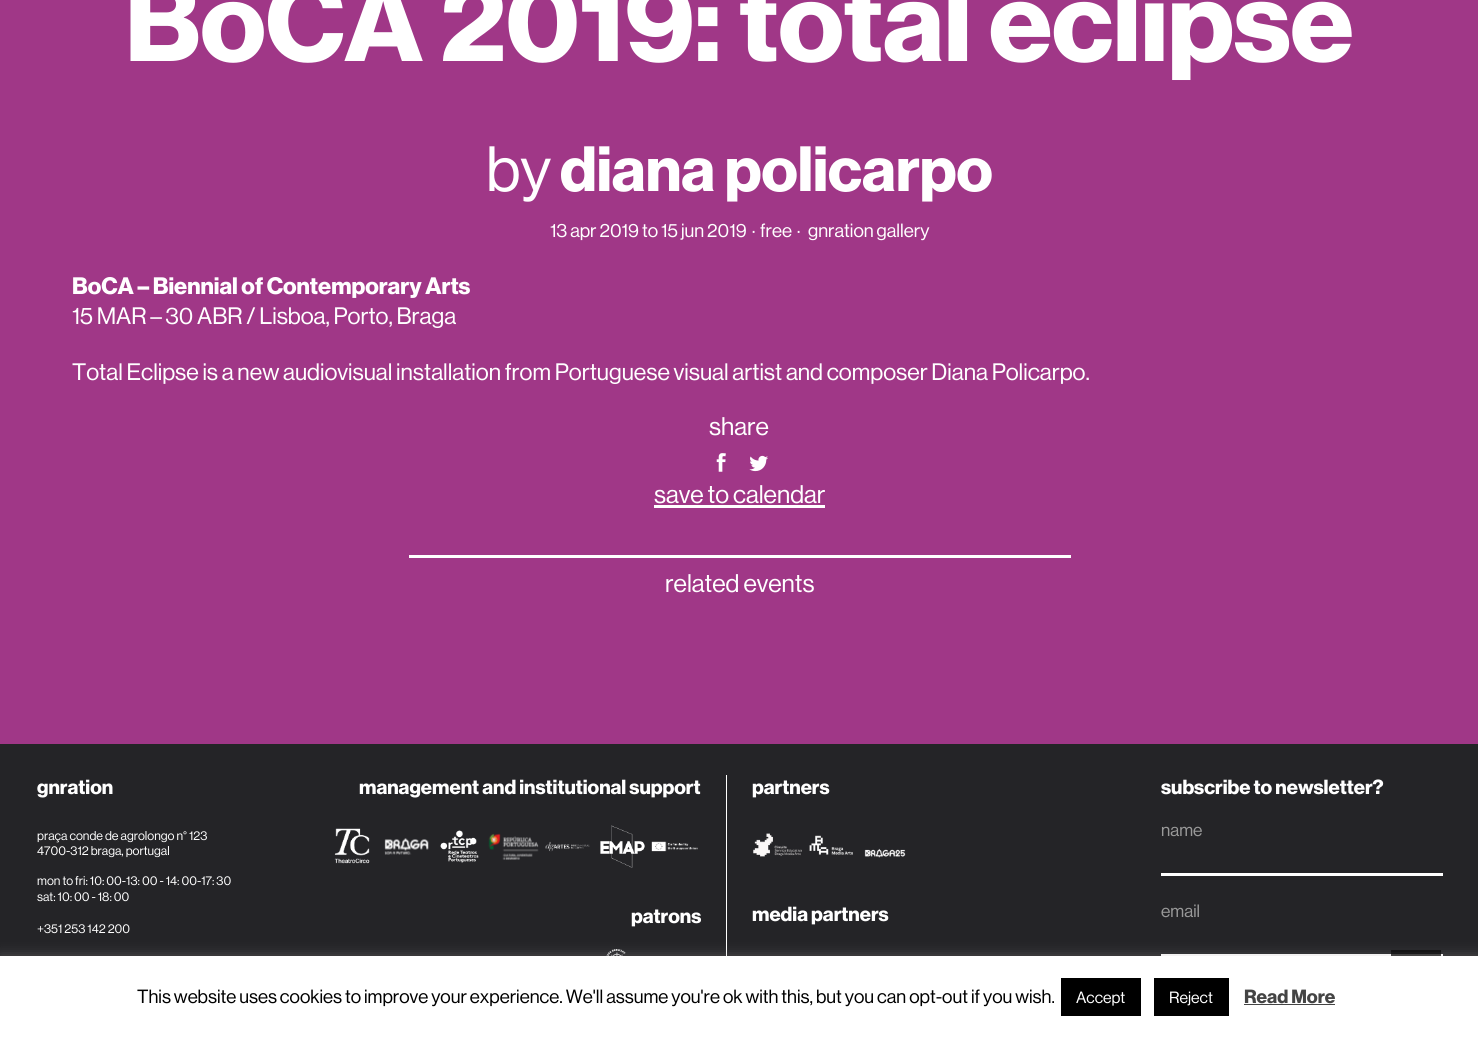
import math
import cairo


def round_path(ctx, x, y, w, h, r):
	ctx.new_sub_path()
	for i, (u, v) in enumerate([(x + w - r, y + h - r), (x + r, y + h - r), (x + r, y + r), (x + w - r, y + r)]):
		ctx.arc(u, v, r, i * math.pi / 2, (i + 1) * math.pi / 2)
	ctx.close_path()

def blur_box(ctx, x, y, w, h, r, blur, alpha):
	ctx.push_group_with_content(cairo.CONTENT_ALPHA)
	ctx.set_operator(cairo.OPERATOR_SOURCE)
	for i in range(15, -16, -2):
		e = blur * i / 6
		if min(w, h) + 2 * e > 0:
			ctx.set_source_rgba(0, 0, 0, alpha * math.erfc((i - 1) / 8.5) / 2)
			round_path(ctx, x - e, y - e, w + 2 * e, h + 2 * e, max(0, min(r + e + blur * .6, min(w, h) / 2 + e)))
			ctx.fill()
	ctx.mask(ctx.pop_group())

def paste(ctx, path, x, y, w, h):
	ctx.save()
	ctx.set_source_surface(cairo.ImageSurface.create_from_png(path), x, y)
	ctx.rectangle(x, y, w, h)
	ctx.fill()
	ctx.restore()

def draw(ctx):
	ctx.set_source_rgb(0.627, 0.216, 0.529)
	ctx.paint()
	ctx.select_font_face('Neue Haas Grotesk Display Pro', cairo.FONT_SLANT_NORMAL, cairo.FONT_WEIGHT_BOLD)
	ctx.set_font_size(112.5)
	ctx.set_source_rgb(1, 1, 1)
	ctx.move_to(125, 61)
	ctx.show_text('BoCA 2019: total eclipse')
	ctx.select_font_face('Neue Haas Grotesk Display Pro')
	ctx.set_font_size(62.5)
	ctx.move_to(486, 191)
	ctx.show_text('by')
	ctx.select_font_face('Neue Haas Grotesk Display Pro', cairo.FONT_SLANT_NORMAL, cairo.FONT_WEIGHT_BOLD)
	ctx.move_to(560, 191)
	ctx.show_text('diana policarpo')
	ctx.select_font_face('Neue Haas Grotesk Display Pro')
	ctx.set_font_size(18.75)
	ctx.move_to(550, 237)
	ctx.show_text('13 apr 2019')
	ctx.move_to(642, 237)
	ctx.show_text('to 15 jun 2019')
	ctx.select_font_face('Liberation Sans')
	ctx.move_to(751, 237)
	ctx.show_text('∙')
	ctx.select_font_face('Neue Haas Grotesk Display Pro')
	ctx.move_to(760, 237)
	ctx.show_text('free')
	ctx.select_font_face('Liberation Sans')
	ctx.move_to(796, 237)
	ctx.show_text('∙')
	ctx.select_font_face('Neue Haas Grotesk Display Pro')
	ctx.move_to(808, 237)
	ctx.show_text('gnration gallery')
	ctx.select_font_face('Neue Haas Grotesk Display Pro', cairo.FONT_SLANT_NORMAL, cairo.FONT_WEIGHT_BOLD)
	ctx.set_font_size(23.35)
	ctx.move_to(72, 294)
	ctx.show_text('BoCA – Biennial of Contemporary Arts')
	ctx.select_font_face('Neue Haas Grotesk Display Pro')
	ctx.move_to(72, 324)
	ctx.show_text('15 MAR – 30 ABR / Lisboa, Porto, Braga')
	ctx.move_to(72, 380)
	ctx.show_text('Total Eclipse is a new audiovisual installation from Portuguese visual artist and composer Diana Policarpo.')
	ctx.set_font_size(25)
	ctx.move_to(709, 435)
	ctx.show_text('share')
	paste(ctx, 'media/1.png', 716, 453, 10, 19)
	paste(ctx, 'media/2.png', 749, 455, 19, 17)
	ctx.move_to(654, 503)
	ctx.show_text('save to calendar')
	ctx.rectangle(654, 505, 171, 3)
	ctx.fill()
	ctx.rectangle(409, 555, 662, 3)
	ctx.fill()
	ctx.move_to(665, 592)
	ctx.show_text('related events')
	ctx.set_source_rgb(0.141, 0.141, 0.153)
	ctx.rectangle(0, 744, 1478, 212)
	ctx.fill()
	ctx.select_font_face('Neue Haas Grotesk Display Pro', cairo.FONT_SLANT_NORMAL, cairo.FONT_WEIGHT_BOLD)
	ctx.set_font_size(20)
	ctx.set_source_rgb(1, 1, 1)
	ctx.move_to(37, 794)
	ctx.show_text('gnration')
	ctx.select_font_face('Neue Haas Grotesk Display Pro')
	ctx.set_font_size(12.5)
	for x, y, s in [
		(37, 840, 'praça conde de agrolongo n° 123'),
		(37, 855, '4700-312 braga, portugal'),
		(37, 885, 'mon to fri: 10: 00-13: 00 - 14: 00-17: 30'),
		(37, 901, 'sat: 10: 00 - 18: 00'),
		(37, 933, '+351 253 142 200'),
	]:
		ctx.move_to(x, y)
		ctx.show_text(s)
	ctx.rectangle(726, 775, 1, 181)
	ctx.fill()
	ctx.select_font_face('Neue Haas Grotesk Display Pro', cairo.FONT_SLANT_NORMAL, cairo.FONT_WEIGHT_BOLD)
	ctx.set_font_size(20)
	ctx.move_to(359, 794)
	ctx.show_text('management and institutional support')
	paste(ctx, 'media/3.png', 334, 828, 36, 36)
	paste(ctx, 'media/4.png', 384, 838, 45, 17)
	paste(ctx, 'media/5.png', 440, 830, 39, 33)
	paste(ctx, 'media/6.png', 488, 833, 51, 27)
	paste(ctx, 'media/7.png', 545, 841, 45, 11)
	paste(ctx, 'media/8.png', 600, 825, 45, 43)
	paste(ctx, 'media/9.png', 651, 841, 47, 11)
	ctx.move_to(631, 923)
	ctx.show_text('patrons')
	paste(ctx, 'media/10.png', 606, 949, 20, 7)
	ctx.move_to(752, 794)
	ctx.show_text('partners')
	paste(ctx, 'media/11.png', 753, 833, 49, 24)
	paste(ctx, 'media/12.png', 809, 835, 44, 20)
	paste(ctx, 'media/13.png', 864, 848, 42, 10)
	ctx.move_to(752, 921)
	ctx.show_text('media partners')
	ctx.move_to(1161, 794)
	ctx.show_text('subscribe to newsletter?')
	ctx.select_font_face('Neue Haas Grotesk Display Pro')
	ctx.set_font_size(17.5)
	ctx.set_source_rgb(0.6, 0.6, 0.6)
	ctx.move_to(1161, 836)
	ctx.show_text('name')
	ctx.set_source_rgb(1, 1, 1)
	ctx.rectangle(1161, 873, 282, 3)
	ctx.fill()
	ctx.set_source_rgb(0.6, 0.6, 0.6)
	ctx.move_to(1161, 917)
	ctx.show_text('email')
	ctx.set_source_rgb(1, 1, 1)
	ctx.rectangle(1161, 954, 282, 2)
	ctx.fill()
	ctx.set_source_rgba(0, 0, 0, 0.8)
	ctx.rectangle(1391, 950, 50, 6)
	ctx.fill()
	ctx.set_source_rgb(0.675, 0.671, 0.671)
	blur_box(ctx, 0, 955, 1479, 81, 0, 6, 0.3)
	ctx.set_source_rgb(1, 1, 1)
	ctx.rectangle(0, 956, 1478, 81)
	ctx.fill()
	ctx.set_font_size(18.75)
	ctx.set_source_rgb(0, 0, 0)
	ctx.move_to(137, 1003)
	ctx.show_text('This website uses cookies to improve your experience. We\'ll assume you\'re ok with this, but you can opt-out if you wish.')
	ctx.rectangle(1061, 978, 80, 38)
	ctx.fill()
	ctx.set_font_size(16)
	ctx.set_source_rgb(1, 1, 1)
	ctx.move_to(1076, 1003)
	ctx.show_text('Accept')
	ctx.set_source_rgb(0, 0, 0)
	ctx.rectangle(1154, 978, 75, 38)
	ctx.fill()
	ctx.set_source_rgb(1, 1, 1)
	ctx.move_to(1169, 1003)
	ctx.show_text('Reject')
	ctx.select_font_face('Neue Haas Grotesk Display Pro', cairo.FONT_SLANT_NORMAL, cairo.FONT_WEIGHT_BOLD)
	ctx.set_font_size(18.75)
	ctx.set_source_rgb(0.267, 0.267, 0.267)
	ctx.move_to(1244, 1003)
	ctx.show_text('Read More')
	ctx.rectangle(1244, 1004, 91, 1)
	ctx.fill()


surface = cairo.ImageSurface(cairo.FORMAT_RGB24, 1478, 1037)
ctx = cairo.Context(surface)
options = cairo.FontOptions()
options.set_hint_metrics(cairo.HINT_METRICS_OFF)
options.set_hint_style(cairo.HINT_STYLE_NONE)
ctx.set_font_options(options)
ctx.set_miter_limit(4)
draw(ctx)
surface.write_to_png('image.png')
